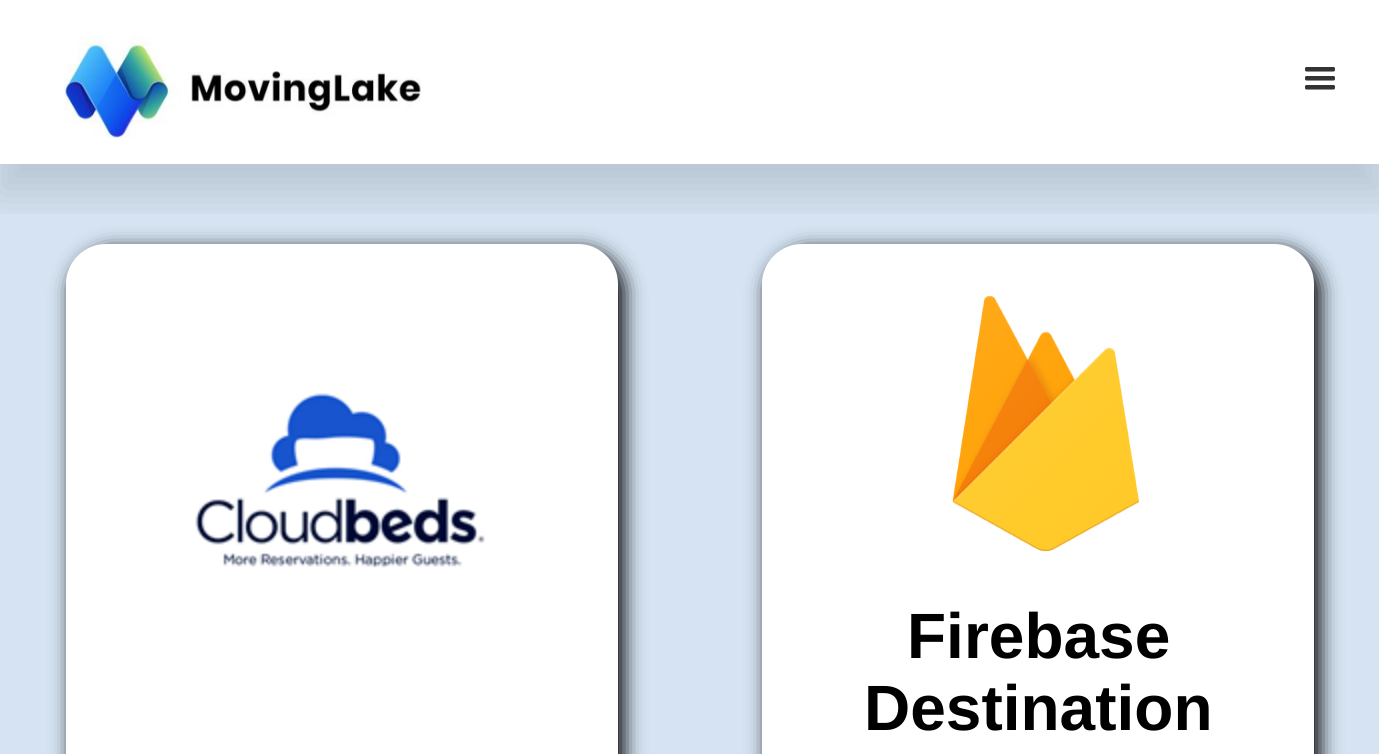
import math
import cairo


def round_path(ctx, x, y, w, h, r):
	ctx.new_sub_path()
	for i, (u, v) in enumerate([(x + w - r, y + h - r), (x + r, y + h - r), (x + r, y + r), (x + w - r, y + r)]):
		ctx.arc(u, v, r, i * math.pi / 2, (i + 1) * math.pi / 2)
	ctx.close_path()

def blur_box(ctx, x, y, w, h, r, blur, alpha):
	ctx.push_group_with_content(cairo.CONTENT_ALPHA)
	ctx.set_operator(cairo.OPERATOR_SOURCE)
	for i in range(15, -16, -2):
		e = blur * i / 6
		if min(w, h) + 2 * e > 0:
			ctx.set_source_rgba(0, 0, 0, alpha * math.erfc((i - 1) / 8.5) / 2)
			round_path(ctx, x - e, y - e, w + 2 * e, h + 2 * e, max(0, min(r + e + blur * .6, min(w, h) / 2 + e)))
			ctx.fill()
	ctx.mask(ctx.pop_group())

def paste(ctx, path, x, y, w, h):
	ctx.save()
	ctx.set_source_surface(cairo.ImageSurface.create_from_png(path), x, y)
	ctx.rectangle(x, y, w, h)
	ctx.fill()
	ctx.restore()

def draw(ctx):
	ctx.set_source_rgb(1, 1, 1)
	ctx.paint()
	ctx.set_source_rgb(0.835, 0.89, 0.949)
	ctx.rectangle(0, 164, 1379, 590)
	ctx.fill()
	ctx.set_source_rgb(0, 0, 0)
	blur_box(ctx, 72, 250, 552, 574, 40, 10, 1)
	ctx.set_source_rgb(1, 1, 1)
	round_path(ctx, 66, 244, 552, 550, 40)
	ctx.fill()
	ctx.set_source_rgb(0, 0, 0)
	blur_box(ctx, 768, 250, 552, 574, 40, 10, 1)
	ctx.set_source_rgb(1, 1, 1)
	round_path(ctx, 762, 244, 552, 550, 40)
	ctx.fill()
	ctx.save()
	ctx.rectangle(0, 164, 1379, 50)
	ctx.clip()
	ctx.set_source_rgb(0, 0, 0)
	blur_box(ctx, -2, 26, 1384, 168, 0, 20, 0.13)
	ctx.restore()
	paste(ctx, 'media/1.png', 63, 35, 358, 103)
	paste(ctx, 'media/2.png', 1305, 67, 30, 23)
	paste(ctx, 'media/3.png', 195, 393, 290, 176)
	paste(ctx, 'media/4.png', 952, 296, 188, 256)
	ctx.select_font_face('Liberation Sans', cairo.FONT_SLANT_NORMAL, cairo.FONT_WEIGHT_BOLD)
	ctx.set_font_size(64)
	ctx.set_source_rgb(0, 0, 0)
	ctx.move_to(907, 658)
	ctx.show_text('Firebase')
	ctx.move_to(864, 730)
	ctx.show_text('Destination')


surface = cairo.ImageSurface(cairo.FORMAT_RGB24, 1379, 754)
ctx = cairo.Context(surface)
options = cairo.FontOptions()
options.set_hint_metrics(cairo.HINT_METRICS_OFF)
options.set_hint_style(cairo.HINT_STYLE_NONE)
ctx.set_font_options(options)
ctx.set_miter_limit(4)
draw(ctx)
surface.write_to_png('image.png')
